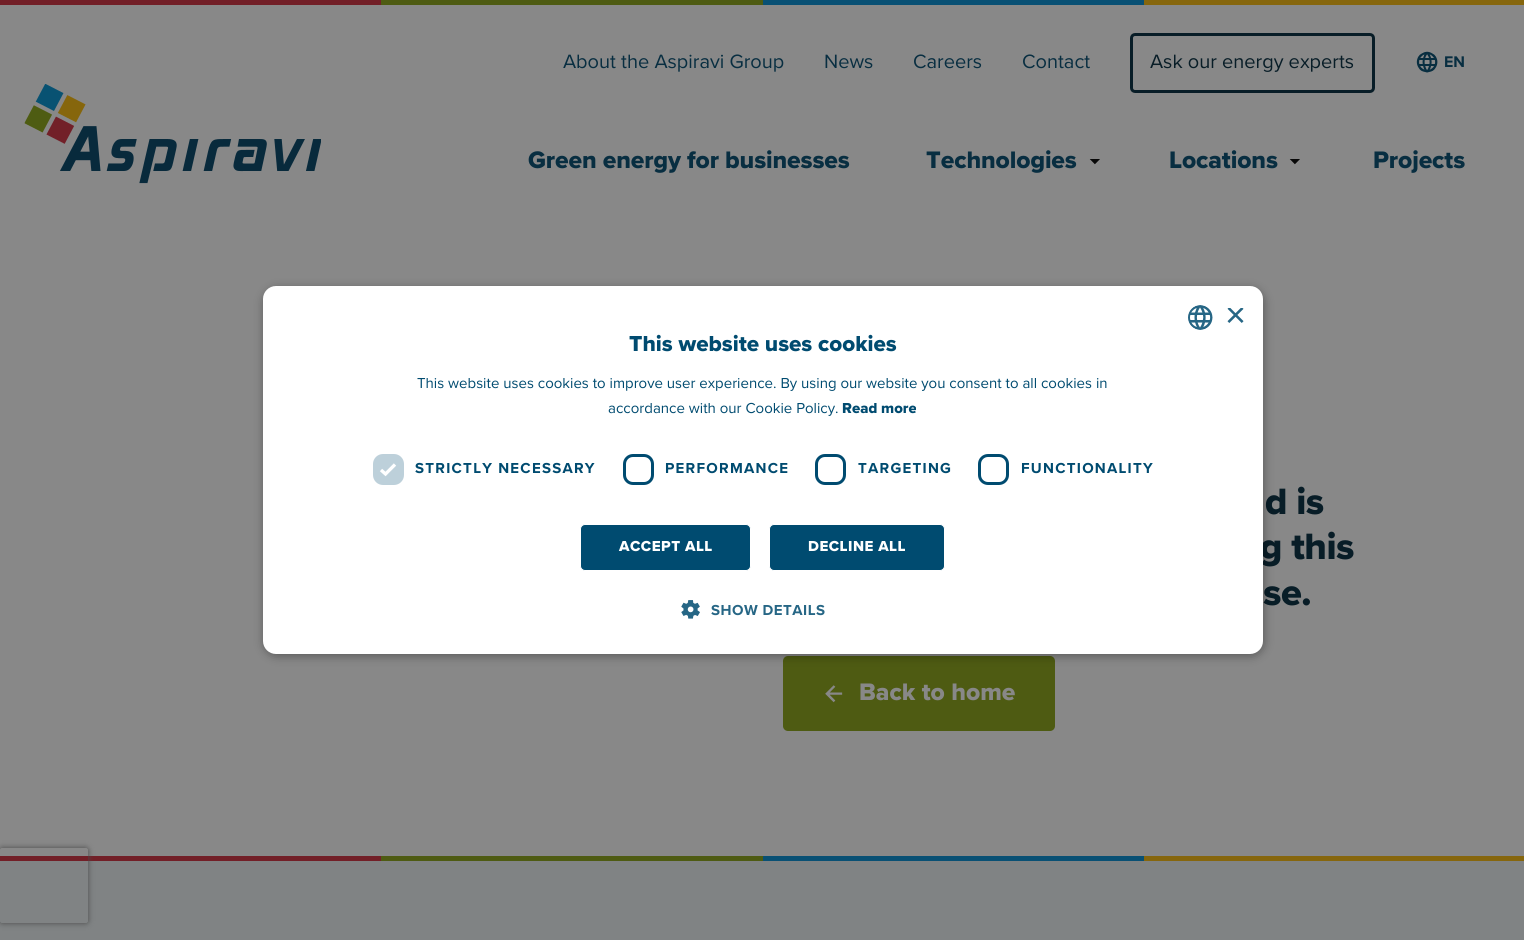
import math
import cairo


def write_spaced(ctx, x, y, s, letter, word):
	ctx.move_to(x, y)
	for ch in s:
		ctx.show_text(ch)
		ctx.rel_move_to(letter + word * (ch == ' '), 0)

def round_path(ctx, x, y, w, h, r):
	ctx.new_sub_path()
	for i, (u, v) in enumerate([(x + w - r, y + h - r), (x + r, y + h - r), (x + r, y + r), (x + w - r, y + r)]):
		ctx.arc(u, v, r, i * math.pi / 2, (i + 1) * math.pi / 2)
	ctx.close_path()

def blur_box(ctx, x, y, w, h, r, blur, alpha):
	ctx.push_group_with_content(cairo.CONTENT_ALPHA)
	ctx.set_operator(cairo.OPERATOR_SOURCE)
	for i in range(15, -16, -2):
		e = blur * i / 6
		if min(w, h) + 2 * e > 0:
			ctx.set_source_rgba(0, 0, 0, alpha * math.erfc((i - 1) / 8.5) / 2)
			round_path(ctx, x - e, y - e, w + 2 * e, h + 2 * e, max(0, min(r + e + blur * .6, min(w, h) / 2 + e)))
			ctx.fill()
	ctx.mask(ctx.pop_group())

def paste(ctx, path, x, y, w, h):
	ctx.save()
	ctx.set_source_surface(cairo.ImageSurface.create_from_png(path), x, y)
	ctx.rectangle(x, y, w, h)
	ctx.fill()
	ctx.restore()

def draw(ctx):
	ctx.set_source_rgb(0.533, 0.533, 0.533)
	ctx.paint()
	ctx.set_source_rgb(0.447, 0.122, 0.153)
	ctx.rectangle(0, 0, 381, 5)
	ctx.fill()
	ctx.set_source_rgb(0.306, 0.357, 0.071)
	ctx.rectangle(381, 0, 382, 5)
	ctx.fill()
	ctx.set_source_rgb(0.035, 0.314, 0.455)
	ctx.rectangle(763, 0, 381, 5)
	ctx.fill()
	ctx.set_source_rgb(0.525, 0.4, 0.051)
	ctx.rectangle(1144, 0, 380, 5)
	ctx.fill()
	ctx.select_font_face('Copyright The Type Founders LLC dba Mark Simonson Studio')
	ctx.set_font_size(20)
	ctx.set_source_rgb(0.035, 0.18, 0.255)
	for x, y, s in [
		(563, 68, 'About the Aspiravi Group'),
		(824, 68, 'News'),
		(913, 68, 'Careers'),
		(1022, 68, 'Contact'),
	]:
		ctx.move_to(x, y)
		ctx.show_text(s)
	round_path(ctx, 1131.5, 34.5, 242, 57, 3.5)
	ctx.set_source_rgb(0.035, 0.114, 0.153)
	ctx.set_line_width(3)
	ctx.stroke()
	ctx.move_to(1150, 68)
	ctx.show_text('Ask our energy experts')
	paste(ctx, 'media/1.png', 1416, 51, 22, 22)
	ctx.select_font_face('Copyright The Type Founders LLC dba Mark Simonson Studio', cairo.FONT_SLANT_NORMAL, cairo.FONT_WEIGHT_BOLD)
	ctx.set_font_size(16)
	ctx.set_source_rgb(0.035, 0.18, 0.255)
	ctx.move_to(1444, 67)
	ctx.show_text('EN')
	paste(ctx, 'media/2.png', 24, 84, 297, 100)
	ctx.select_font_face('Copyright The Type Founders LLC dba Mark Simonson Studio ExtraBold')
	ctx.set_font_size(24.75)
	write_spaced(ctx, 528, 168, 'Green energy for businesses', -0.1, 0)
	write_spaced(ctx, 926, 168, 'Technologies', -0.1, 0)
	paste(ctx, 'media/3.png', 1089, 159, 11, 6)
	write_spaced(ctx, 1169, 168, 'Locations', -0.1, 0)
	paste(ctx, 'media/3.png', 1289, 159, 11, 6)
	write_spaced(ctx, 1373, 168, 'Projects', -0.1, 0)
	ctx.set_font_size(38)
	ctx.set_source_rgb(0.035, 0.114, 0.153)
	for x, y, s in [
		(1265, 514, 'd is'),
		(1260, 559, 'g this'),
		(1263, 605, 'se.'),
	]:
		write_spaced(ctx, x, y, s, -0.5, 0)
	ctx.set_source_rgb(0.306, 0.357, 0.071)
	round_path(ctx, 783, 656, 272, 75, 5)
	ctx.fill()
	paste(ctx, 'media/4.png', 825, 685, 18, 18)
	ctx.set_font_size(24.75)
	ctx.set_source_rgb(0.533, 0.533, 0.533)
	ctx.move_to(859, 700)
	ctx.show_text('Back to home')
	ctx.set_source_rgb(0.447, 0.122, 0.153)
	ctx.rectangle(0, 856, 381, 5)
	ctx.fill()
	ctx.set_source_rgb(0.306, 0.357, 0.071)
	ctx.rectangle(381, 856, 382, 5)
	ctx.fill()
	ctx.set_source_rgb(0.035, 0.314, 0.455)
	ctx.rectangle(763, 856, 381, 5)
	ctx.fill()
	ctx.set_source_rgb(0.525, 0.4, 0.051)
	ctx.rectangle(1144, 856, 380, 5)
	ctx.fill()
	ctx.set_source_rgb(0.502, 0.514, 0.518)
	ctx.rectangle(0, 861, 1524, 79)
	ctx.fill()
	ctx.set_source_rgb(0, 0, 0)
	blur_box(ctx, 264, 289, 1000, 367, 13, 5, 0.35)
	ctx.set_source_rgb(1, 1, 1)
	round_path(ctx, 263, 286, 1000, 368, 13)
	ctx.fill()
	paste(ctx, 'media/5.png', 1188, 305, 25, 25)
	ctx.save()
	ctx.rectangle(1225, 308, 19, 18)
	ctx.clip()
	ctx.select_font_face('Liberation Sans')
	ctx.set_font_size(36)
	ctx.set_source_rgb(0.149, 0.4, 0.522)
	ctx.move_to(1225, 327)
	ctx.show_text('×')
	ctx.restore()
	ctx.set_font_size(22.5)
	ctx.set_source_rgb(0, 0.294, 0.439)
	ctx.move_to(629, 351)
	ctx.show_text('This website uses cookies')
	ctx.select_font_face('Copyright The Type Founders LLC dba Mark Simonson Studio')
	ctx.set_font_size(15)
	ctx.move_to(417, 388)
	ctx.show_text('This website uses cookies to improve user experience. By using our website you consent to all cookies in')
	ctx.move_to(608, 413)
	ctx.show_text('accordance with our Cookie Policy.')
	ctx.select_font_face('Copyright The Type Founders LLC dba Mark Simonson Studio ExtraBold')
	ctx.move_to(842, 413)
	ctx.show_text('Read more')
	ctx.set_source_rgb(0.741, 0.816, 0.855)
	round_path(ctx, 373, 454, 31, 31, 10)
	ctx.fill()
	ctx.new_path()
	ctx.move_to(381, 470)
	ctx.line_to(385.5, 474)
	ctx.line_to(395, 464.5)
	ctx.set_source_rgb(1, 1, 1)
	ctx.set_line_width(3.3)
	ctx.stroke()
	ctx.select_font_face('Copyright The Type Founders LLC dba Mark Simonson Studio', cairo.FONT_SLANT_NORMAL, cairo.FONT_WEIGHT_BOLD)
	ctx.set_source_rgb(0, 0.294, 0.439)
	write_spaced(ctx, 415, 473, 'STRICTLY NECESSARY', 1.25, 0)
	round_path(ctx, 624.5, 455.5, 28, 28, 8.5)
	ctx.set_line_width(3)
	ctx.stroke()
	write_spaced(ctx, 665, 473, 'PERFORMANCE', 1.25, 0)
	round_path(ctx, 816.5, 455.5, 28, 28, 8.5)
	ctx.stroke()
	write_spaced(ctx, 858, 473, 'TARGETING', 1.25, 0)
	round_path(ctx, 979.5, 455.5, 28, 28, 8.5)
	ctx.stroke()
	write_spaced(ctx, 1021, 473, 'FUNCTIONALITY', 1.25, 0)
	round_path(ctx, 580.5, 524.5, 170, 46, 4.5)
	ctx.fill_preserve()
	ctx.set_source_rgb(1, 1, 1)
	ctx.set_line_width(1)
	ctx.stroke()
	ctx.select_font_face('Copyright The Type Founders LLC dba Mark Simonson Studio ExtraBold')
	write_spaced(ctx, 619, 551, 'ACCEPT ALL', 0.5, 0)
	ctx.set_source_rgb(0, 0.294, 0.439)
	round_path(ctx, 769.5, 524.5, 175, 46, 4.5)
	ctx.fill_preserve()
	ctx.set_source_rgb(1, 1, 1)
	ctx.stroke()
	write_spaced(ctx, 808, 551, 'DECLINE ALL', 0.5, 0)
	paste(ctx, 'media/6.png', 681, 600, 19, 19)
	ctx.select_font_face('Copyright The Type Founders LLC dba Mark Simonson Studio', cairo.FONT_SLANT_NORMAL, cairo.FONT_WEIGHT_BOLD)
	ctx.set_source_rgb(0.149, 0.4, 0.522)
	write_spaced(ctx, 711, 615, 'SHOW DETAILS', 0.5, 0)
	ctx.save()
	ctx.set_fill_rule(cairo.FILL_RULE_EVEN_ODD)
	ctx.new_path()
	ctx.move_to(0, 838)
	ctx.line_to(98, 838)
	ctx.line_to(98, 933)
	ctx.line_to(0, 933)
	ctx.close_path()
	ctx.move_to(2.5, 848)
	ctx.line_to(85.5, 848)
	ctx.curve_to(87, 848, 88, 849, 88, 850.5)
	ctx.line_to(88, 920.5)
	ctx.curve_to(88, 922, 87, 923, 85.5, 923)
	ctx.line_to(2.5, 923)
	ctx.curve_to(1, 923, 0, 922, 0, 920.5)
	ctx.line_to(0, 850.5)
	ctx.curve_to(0, 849, 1, 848, 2.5, 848)
	ctx.close_path()
	ctx.clip()
	ctx.set_source_rgb(0.286, 0.286, 0.286)
	blur_box(ctx, 0, 848, 88, 75, 2.5, 3, 1)
	ctx.restore()


surface = cairo.ImageSurface(cairo.FORMAT_RGB24, 1524, 940)
ctx = cairo.Context(surface)
options = cairo.FontOptions()
options.set_hint_metrics(cairo.HINT_METRICS_OFF)
options.set_hint_style(cairo.HINT_STYLE_NONE)
ctx.set_font_options(options)
ctx.set_miter_limit(4)
draw(ctx)
surface.write_to_png('image.png')
